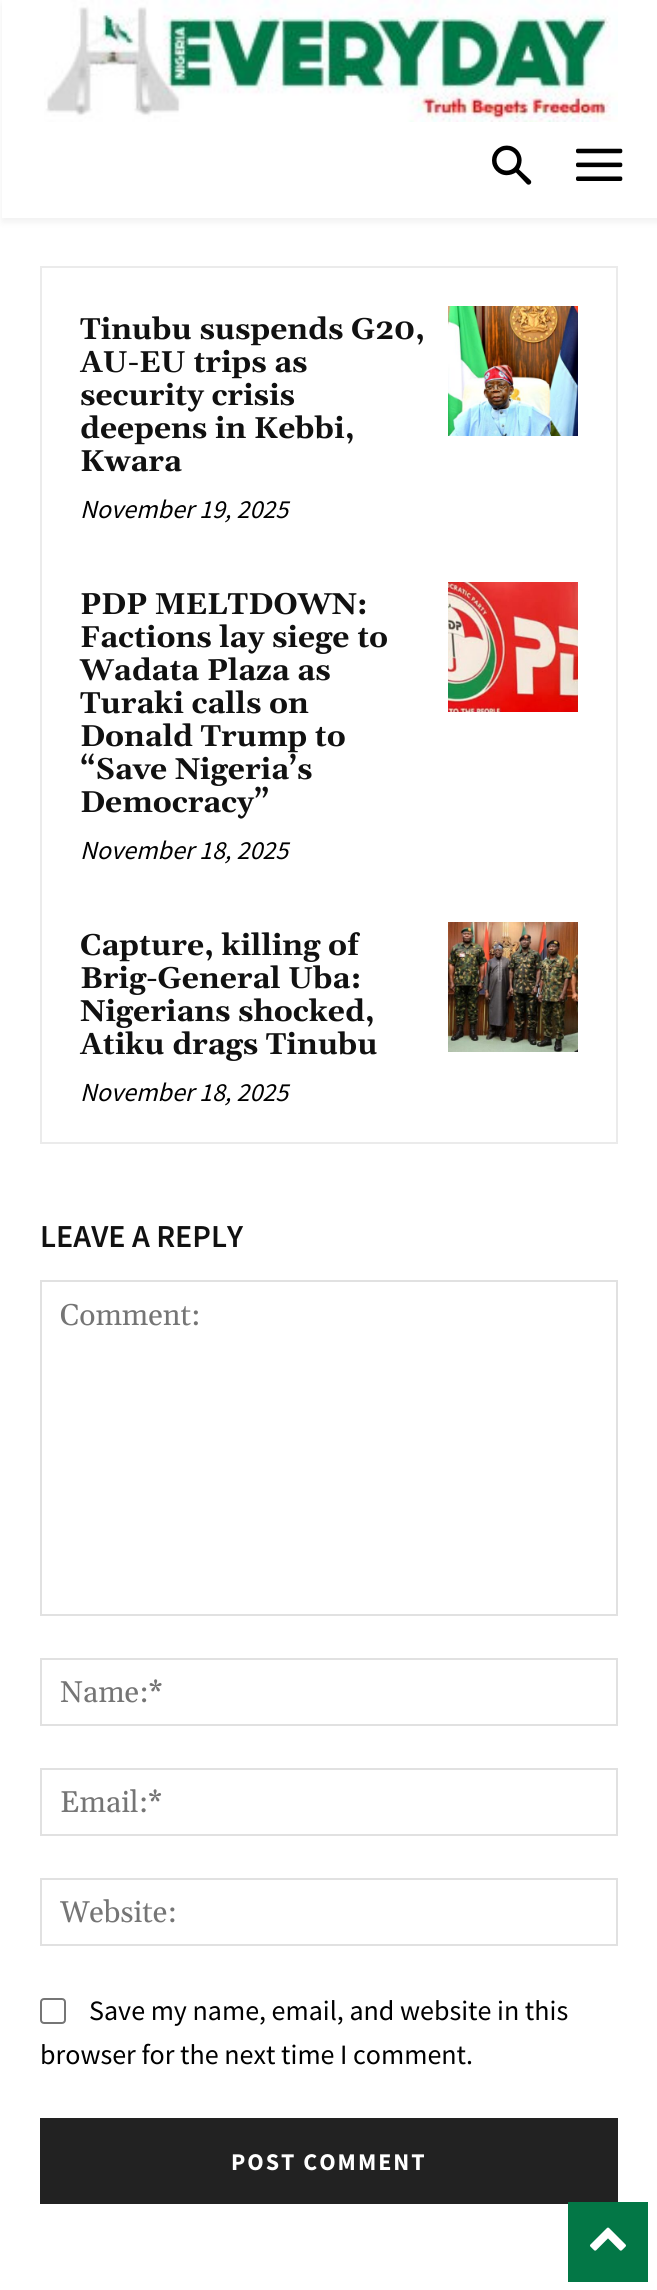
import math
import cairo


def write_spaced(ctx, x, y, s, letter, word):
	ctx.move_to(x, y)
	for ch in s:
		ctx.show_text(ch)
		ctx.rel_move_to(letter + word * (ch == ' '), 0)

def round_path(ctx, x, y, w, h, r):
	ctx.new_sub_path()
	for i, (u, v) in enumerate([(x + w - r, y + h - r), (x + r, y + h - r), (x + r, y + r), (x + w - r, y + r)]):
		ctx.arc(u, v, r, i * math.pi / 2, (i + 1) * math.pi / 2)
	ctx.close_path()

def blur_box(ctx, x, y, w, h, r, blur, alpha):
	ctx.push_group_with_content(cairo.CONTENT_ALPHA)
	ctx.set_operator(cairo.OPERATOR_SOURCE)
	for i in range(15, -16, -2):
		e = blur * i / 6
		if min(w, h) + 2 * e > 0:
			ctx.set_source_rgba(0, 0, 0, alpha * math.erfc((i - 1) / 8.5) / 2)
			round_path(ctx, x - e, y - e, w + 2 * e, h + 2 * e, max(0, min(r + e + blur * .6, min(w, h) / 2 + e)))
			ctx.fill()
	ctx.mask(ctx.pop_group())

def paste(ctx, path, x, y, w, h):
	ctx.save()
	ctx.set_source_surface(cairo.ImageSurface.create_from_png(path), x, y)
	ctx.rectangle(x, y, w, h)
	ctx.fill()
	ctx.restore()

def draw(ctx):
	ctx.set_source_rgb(1, 1, 1)
	ctx.paint()
	paste(ctx, 'media/1.png', 44, 0, 574, 122)
	paste(ctx, 'media/2.png', 492, 145, 40, 40)
	paste(ctx, 'media/3.png', 576, 148, 47, 33)
	ctx.save()
	ctx.set_fill_rule(cairo.FILL_RULE_EVEN_ODD)
	ctx.new_path()
	ctx.move_to(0, 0)
	ctx.line_to(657, 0)
	ctx.line_to(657, 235)
	ctx.line_to(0, 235)
	ctx.close_path()
	ctx.move_to(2, 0)
	ctx.line_to(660, 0)
	ctx.line_to(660, 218)
	ctx.line_to(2, 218)
	ctx.close_path()
	ctx.clip()
	ctx.set_source_rgb(0, 0, 0)
	blur_box(ctx, 2, 4, 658, 218, 0, 4, 0.06)
	ctx.restore()
	ctx.rectangle(41, 267, 576, 876)
	ctx.set_source_rgb(0.918, 0.918, 0.918)
	ctx.stroke()
	ctx.select_font_face('Gelasio', cairo.FONT_SLANT_NORMAL, cairo.FONT_WEIGHT_BOLD)
	ctx.set_font_size(30)
	ctx.set_source_rgb(0.067, 0.067, 0.067)
	for x, y, s in [
		(80, 339, 'Tinubu suspends G20,'),
		(80, 372, 'AU-EU trips as'),
		(80, 405, 'security crisis'),
		(80, 438, 'deepens in Kebbi,'),
		(80, 471, 'Kwara'),
	]:
		ctx.move_to(x, y)
		ctx.show_text(s)
	ctx.select_font_face('Source Sans Pro', cairo.FONT_SLANT_ITALIC)
	ctx.set_font_size(26)
	ctx.set_source_rgb(0, 0, 0)
	ctx.move_to(80, 518)
	ctx.show_text('November 19, 2025')
	paste(ctx, 'media/4.png', 448, 306, 130, 130)
	ctx.select_font_face('Gelasio', cairo.FONT_SLANT_NORMAL, cairo.FONT_WEIGHT_BOLD)
	ctx.set_font_size(30)
	ctx.set_source_rgb(0.067, 0.067, 0.067)
	for x, y, s in [
		(80, 614, 'PDP MELTDOWN:'),
		(80, 647, 'Factions lay siege to'),
		(80, 680, 'Wadata Plaza as'),
		(80, 713, 'Turaki calls on'),
		(80, 746, 'Donald Trump to'),
		(80, 779, '“Save Nigeria’s'),
		(80, 812, 'Democracy”'),
	]:
		ctx.move_to(x, y)
		ctx.show_text(s)
	ctx.select_font_face('Source Sans Pro', cairo.FONT_SLANT_ITALIC)
	ctx.set_font_size(26)
	ctx.set_source_rgb(0, 0, 0)
	ctx.move_to(80, 859)
	ctx.show_text('November 18, 2025')
	paste(ctx, 'media/5.png', 448, 582, 130, 130)
	ctx.select_font_face('Gelasio', cairo.FONT_SLANT_NORMAL, cairo.FONT_WEIGHT_BOLD)
	ctx.set_font_size(30)
	ctx.set_source_rgb(0.067, 0.067, 0.067)
	for x, y, s in [
		(80, 955, 'Capture, killing of'),
		(80, 988, 'Brig-General Uba:'),
		(80, 1021, 'Nigerians shocked,'),
		(80, 1054, 'Atiku drags Tinubu'),
	]:
		ctx.move_to(x, y)
		ctx.show_text(s)
	ctx.select_font_face('Source Sans Pro', cairo.FONT_SLANT_ITALIC)
	ctx.set_font_size(26)
	ctx.set_source_rgb(0, 0, 0)
	ctx.move_to(80, 1101)
	ctx.show_text('November 18, 2025')
	paste(ctx, 'media/6.png', 448, 922, 130, 130)
	ctx.select_font_face('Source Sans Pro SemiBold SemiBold')
	ctx.set_font_size(32)
	ctx.set_source_rgb(0.067, 0.067, 0.067)
	ctx.move_to(40, 1247)
	ctx.show_text('LEAVE A REPLY')
	ctx.rectangle(41, 1281, 576, 334)
	ctx.set_source_rgb(0.882, 0.882, 0.882)
	ctx.stroke()
	ctx.select_font_face('Gelasio')
	ctx.set_font_size(30)
	ctx.set_source_rgb(0.459, 0.459, 0.459)
	ctx.move_to(60, 1325)
	ctx.show_text('Comment:')
	ctx.rectangle(41, 1659, 576, 66)
	ctx.set_source_rgb(0.882, 0.882, 0.882)
	ctx.stroke()
	ctx.set_source_rgb(0.459, 0.459, 0.459)
	ctx.move_to(60, 1702)
	ctx.show_text('Name:*')
	ctx.rectangle(41, 1769, 576, 66)
	ctx.set_source_rgb(0.882, 0.882, 0.882)
	ctx.stroke()
	ctx.set_source_rgb(0.459, 0.459, 0.459)
	ctx.move_to(60, 1812)
	ctx.show_text('Email:*')
	ctx.rectangle(41, 1879, 576, 66)
	ctx.set_source_rgb(0.882, 0.882, 0.882)
	ctx.stroke()
	ctx.set_source_rgb(0.459, 0.459, 0.459)
	ctx.move_to(60, 1922)
	ctx.show_text('Website:')
	round_path(ctx, 41, 1999, 24, 24, 3)
	ctx.set_source_rgb(0.463, 0.463, 0.463)
	ctx.stroke()
	ctx.select_font_face('Source Sans Pro')
	ctx.set_font_size(28)
	ctx.set_source_rgb(0, 0, 0)
	ctx.move_to(89, 2020)
	ctx.show_text('Save my name, email, and website in this')
	ctx.move_to(40, 2064)
	ctx.show_text('browser for the next time I comment.')
	ctx.set_source_rgb(0.133, 0.133, 0.133)
	ctx.rectangle(40, 2118, 578, 86)
	ctx.fill()
	ctx.select_font_face('Source Sans Pro', cairo.FONT_SLANT_NORMAL, cairo.FONT_WEIGHT_BOLD)
	ctx.set_font_size(24)
	ctx.set_source_rgb(1, 1, 1)
	write_spaced(ctx, 231, 2170, 'POST COMMENT', 2, 0)
	ctx.set_source_rgb(0.012, 0.467, 0.275)
	ctx.rectangle(568, 2202, 80, 80)
	ctx.fill()
	paste(ctx, 'media/7.png', 590, 2227, 36, 24)


surface = cairo.ImageSurface(cairo.FORMAT_RGB24, 657, 2290)
ctx = cairo.Context(surface)
options = cairo.FontOptions()
options.set_hint_metrics(cairo.HINT_METRICS_OFF)
options.set_hint_style(cairo.HINT_STYLE_NONE)
ctx.set_font_options(options)
ctx.set_miter_limit(4)
draw(ctx)
surface.write_to_png('image.png')
